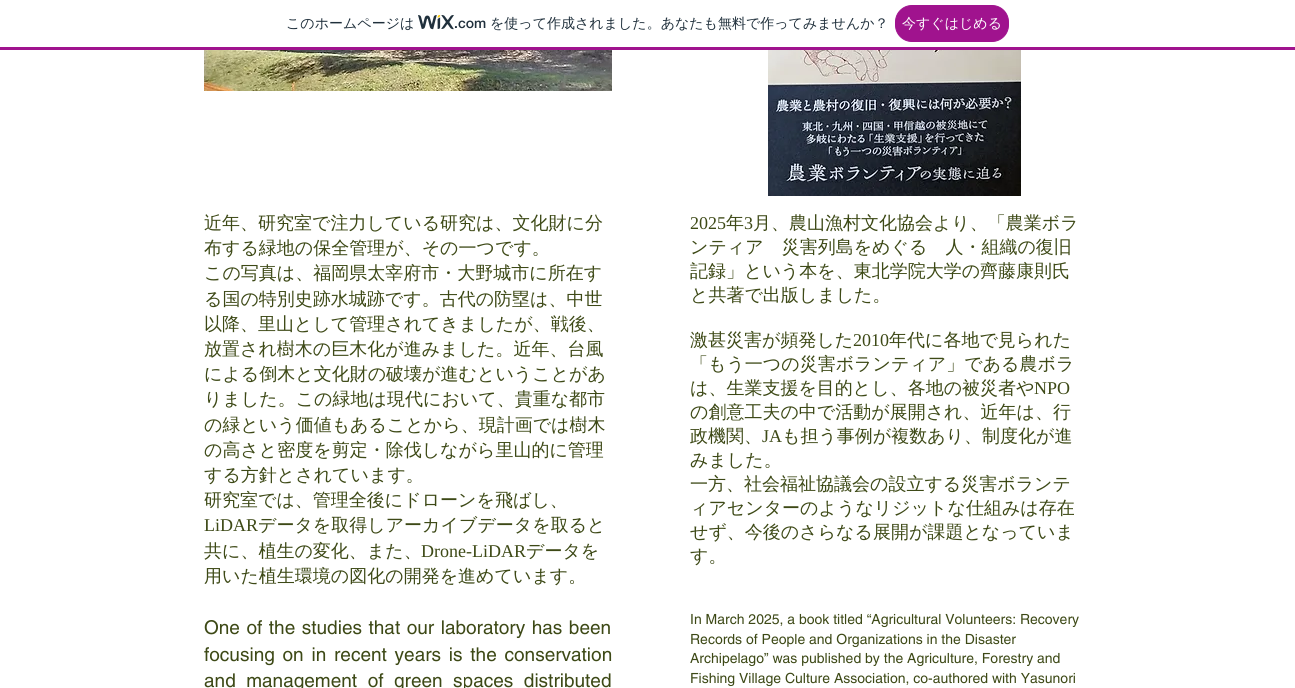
import math
import cairo


def write_spaced(ctx, x, y, s, letter, word):
	ctx.move_to(x, y)
	for ch in s:
		ctx.show_text(ch)
		ctx.rel_move_to(letter + word * (ch == ' '), 0)

def round_path(ctx, x, y, w, h, r):
	ctx.new_sub_path()
	for i, (u, v) in enumerate([(x + w - r, y + h - r), (x + r, y + h - r), (x + r, y + r), (x + w - r, y + r)]):
		ctx.arc(u, v, r, i * math.pi / 2, (i + 1) * math.pi / 2)
	ctx.close_path()

def paste(ctx, path, x, y, w, h):
	ctx.save()
	ctx.set_source_surface(cairo.ImageSurface.create_from_png(path), x, y)
	ctx.rectangle(x, y, w, h)
	ctx.fill()
	ctx.restore()

def draw(ctx):
	ctx.set_source_rgb(1, 1, 1)
	ctx.paint()
	ctx.set_source_rgb(0.627, 0.075, 0.557)
	ctx.rectangle(0, 47, 1295, 3)
	ctx.fill()
	ctx.select_font_face('WenQuanYi Zen Hei Medium')
	ctx.set_font_size(14)
	ctx.set_source_rgb(0.125, 0.188, 0.235)
	ctx.move_to(286, 28)
	ctx.show_text('このホームページは')
	paste(ctx, 'media/1.png', 418, 15, 36, 15)
	ctx.select_font_face('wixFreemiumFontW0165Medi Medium')
	ctx.move_to(454, 28)
	ctx.show_text('.com')
	ctx.select_font_face('WenQuanYi Zen Hei Medium')
	ctx.move_to(490, 28)
	ctx.show_text('を使って作成されました。あなたも無料で作ってみませんか？')
	ctx.set_source_rgb(0.627, 0.075, 0.557)
	round_path(ctx, 895.5, 5.5, 113, 36, 16.5)
	ctx.fill_preserve()
	ctx.set_line_width(1)
	ctx.stroke()
	ctx.set_source_rgb(1, 1, 1)
	ctx.move_to(902, 28)
	ctx.show_text('今すぐはじめる')
	paste(ctx, 'media/2.png', 204, 50, 408, 41)
	paste(ctx, 'media/3.png', 768, 50, 253, 146)
	ctx.set_font_size(18)
	ctx.set_source_rgb(0.239, 0.286, 0.086)
	for x, y, s in [
		(204, 229, '近年、研究室で注力している研究は、文化財に分'),
		(204, 254, '布する緑地の保全管理が、その一つです。'),
		(204, 279, 'この写真は、福岡県太宰府市・大野城市に所在す'),
		(204, 305, 'る国の特別史跡水城跡です。古代の防塁は、中世'),
		(204, 330, '以降、里山として管理されてきましたが、戦後、'),
		(204, 355, '放置され樹木の巨木化が進みました。近年、台風'),
		(204, 380, 'による倒木と文化財の破壊が進むということがあ'),
		(204, 405, 'りました。この緑地は現代において、貴重な都市'),
		(204, 431, 'の緑という価値もあることから、現計画では樹木'),
		(204, 456, 'の高さと密度を剪定・除伐しながら里山的に管理'),
		(204, 481, 'する方針とされています。'),
		(204, 506, '研究室では、管理全後にドローンを飛ばし、'),
	]:
		ctx.move_to(x, y)
		ctx.show_text(s)
	ctx.select_font_face('Liberation Serif')
	ctx.move_to(204, 531)
	ctx.show_text('LiDAR')
	ctx.select_font_face('WenQuanYi Zen Hei Medium')
	ctx.move_to(258, 531)
	ctx.show_text('データを取得しアーカイブデータを取ると')
	ctx.move_to(204, 557)
	ctx.show_text('共に、植生の変化、また、')
	ctx.select_font_face('Liberation Serif')
	ctx.move_to(421, 557)
	ctx.show_text('Drone-LiDAR')
	ctx.select_font_face('WenQuanYi Zen Hei Medium')
	ctx.move_to(526, 557)
	ctx.show_text('データを')
	ctx.move_to(204, 582)
	ctx.show_text('用いた植生環境の図化の開発を進めています。')
	ctx.select_font_face('helvetica')
	ctx.set_font_size(19)
	write_spaced(ctx, 204, 634, 'One of the studies that our laboratory has been', 0, 1.25)
	write_spaced(ctx, 204, 661, 'focusing on in recent years is the conservation', 0, 2.5)
	write_spaced(ctx, 204, 687, 'and management of green spaces distributed', 0, 5.25)
	ctx.select_font_face('Liberation Serif')
	ctx.set_font_size(18)
	ctx.move_to(690, 229)
	ctx.show_text('2025')
	ctx.select_font_face('WenQuanYi Zen Hei Medium')
	ctx.move_to(726, 229)
	ctx.show_text('年')
	ctx.select_font_face('Liberation Serif')
	ctx.move_to(744, 229)
	ctx.show_text('3')
	ctx.select_font_face('WenQuanYi Zen Hei Medium')
	for x, y, s in [
		(753, 229, '月、農山漁村文化協会より、「農業ボラ'),
		(690, 253, 'ンティア　災害列島をめぐる　人・組織の復旧'),
		(690, 277, '記録」という本を、東北学院大学の齊藤康則氏'),
		(690, 301, 'と共著で出版しました。'),
		(690, 346, '激甚災害が頻発した'),
	]:
		ctx.move_to(x, y)
		ctx.show_text(s)
	ctx.select_font_face('Liberation Serif')
	ctx.move_to(853, 346)
	ctx.show_text('2010')
	ctx.select_font_face('WenQuanYi Zen Hei Medium')
	for x, y, s in [
		(889, 346, '年代に各地で見られた'),
		(690, 370, '「もう一つの災害ボランティア」である農ボラ'),
		(690, 394, 'は、生業支援を目的とし、各地の被災者や'),
	]:
		ctx.move_to(x, y)
		ctx.show_text(s)
	ctx.select_font_face('Liberation Serif')
	ctx.move_to(1034, 394)
	ctx.show_text('NPO')
	ctx.select_font_face('WenQuanYi Zen Hei Medium')
	ctx.move_to(690, 418)
	ctx.show_text('の創意工夫の中で活動が展開され、近年は、行')
	ctx.move_to(690, 442)
	ctx.show_text('政機関、')
	ctx.select_font_face('Liberation Serif')
	ctx.move_to(762, 442)
	ctx.show_text('JA')
	ctx.select_font_face('WenQuanYi Zen Hei Medium')
	for x, y, s in [
		(782, 442, 'も担う事例が複数あり、制度化が進'),
		(690, 466, 'みました。'),
		(690, 490, '一方、社会福祉協議会の設立する災害ボランテ'),
		(690, 514, 'ィアセンターのようなリジットな仕組みは存在'),
		(690, 538, 'せず、今後のさらなる展開が課題となっていま'),
		(690, 562, 'す。'),
	]:
		ctx.move_to(x, y)
		ctx.show_text(s)
	ctx.select_font_face('helvetica')
	ctx.set_font_size(14)
	for x, y, s in [
		(690, 624, 'In March 2025, a book titled “Agricultural Volunteers: Recovery'),
		(690, 644, 'Records of People and Organizations in the Disaster'),
		(690, 663, 'Archipelago” was published by the Agriculture, Forestry and'),
		(690, 683, 'Fishing Village Culture Association, co-authored with Yasunori'),
	]:
		ctx.move_to(x, y)
		ctx.show_text(s)


surface = cairo.ImageSurface(cairo.FORMAT_RGB24, 1295, 688)
ctx = cairo.Context(surface)
options = cairo.FontOptions()
options.set_hint_metrics(cairo.HINT_METRICS_OFF)
options.set_hint_style(cairo.HINT_STYLE_NONE)
ctx.set_font_options(options)
ctx.set_miter_limit(4)
draw(ctx)
surface.write_to_png('image.png')
